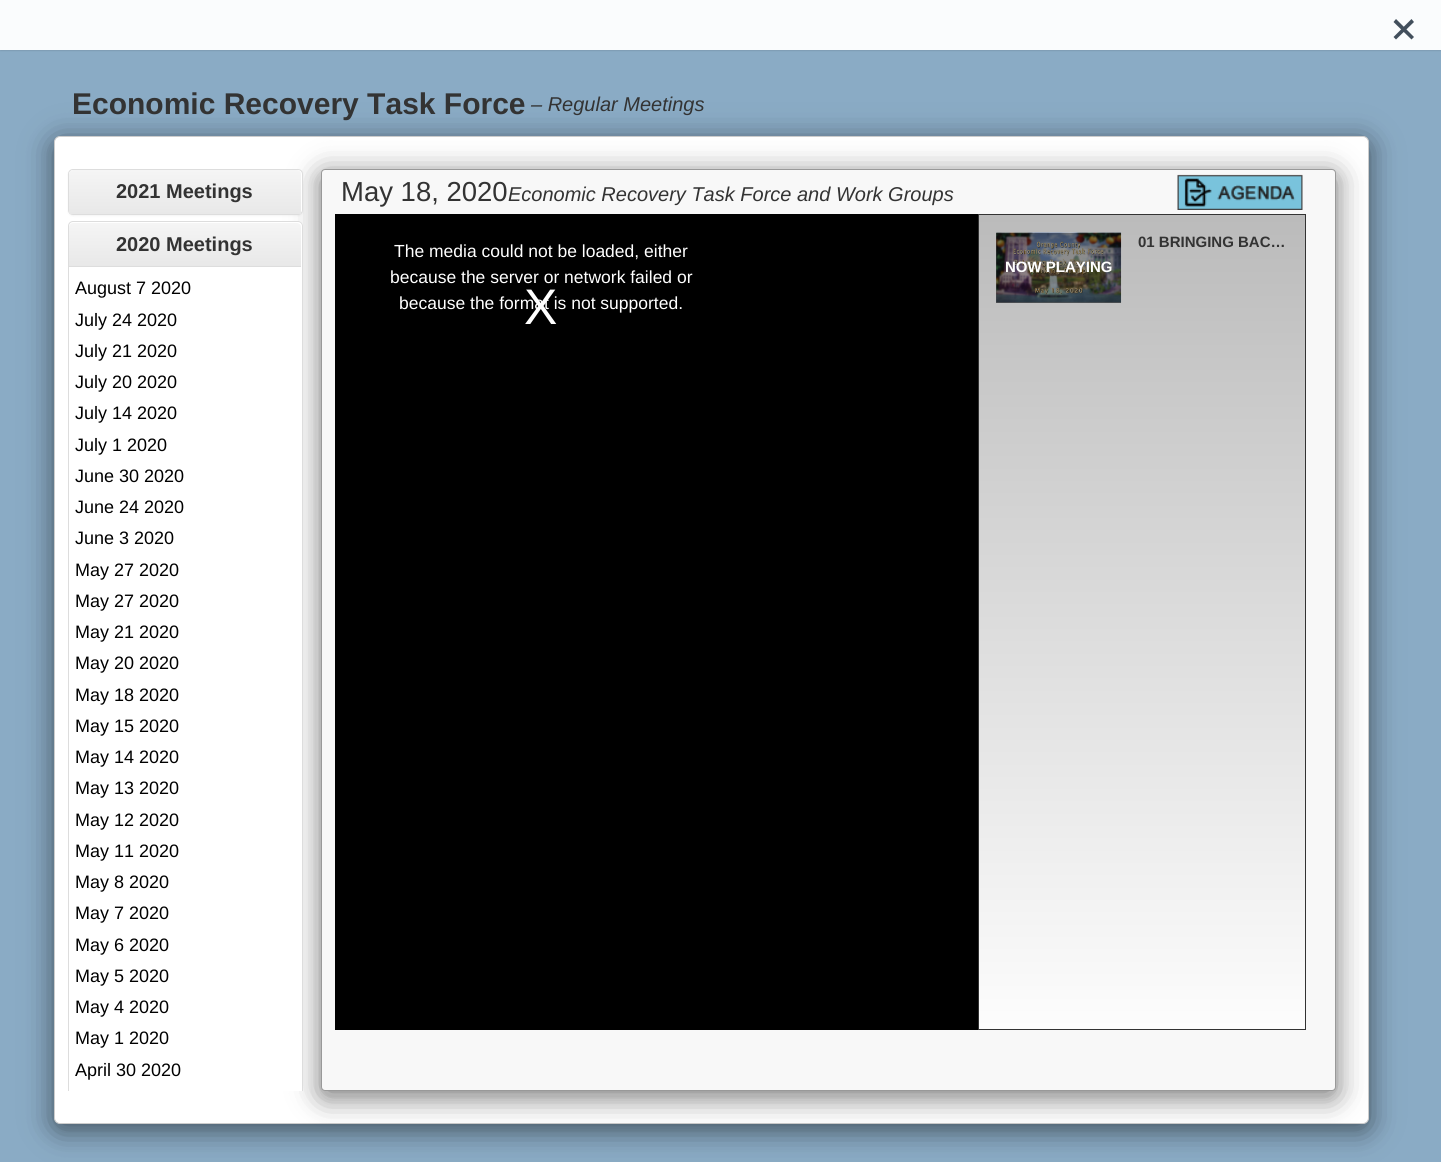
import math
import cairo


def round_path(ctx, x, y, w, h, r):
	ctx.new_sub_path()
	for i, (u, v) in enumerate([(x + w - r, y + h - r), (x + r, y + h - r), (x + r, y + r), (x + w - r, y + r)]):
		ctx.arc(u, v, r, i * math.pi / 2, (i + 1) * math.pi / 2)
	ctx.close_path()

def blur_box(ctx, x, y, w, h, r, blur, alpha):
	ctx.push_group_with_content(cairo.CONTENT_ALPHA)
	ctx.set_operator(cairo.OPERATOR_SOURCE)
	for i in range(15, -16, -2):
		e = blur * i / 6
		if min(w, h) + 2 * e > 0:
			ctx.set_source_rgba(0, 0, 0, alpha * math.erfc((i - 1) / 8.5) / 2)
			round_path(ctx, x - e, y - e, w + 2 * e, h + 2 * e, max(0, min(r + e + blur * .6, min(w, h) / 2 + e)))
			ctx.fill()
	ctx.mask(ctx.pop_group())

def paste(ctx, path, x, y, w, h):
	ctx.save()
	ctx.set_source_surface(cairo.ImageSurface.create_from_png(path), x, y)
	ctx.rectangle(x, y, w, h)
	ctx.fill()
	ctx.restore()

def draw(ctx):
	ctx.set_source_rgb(0.541, 0.671, 0.773)
	ctx.paint()
	ctx.set_source_rgb(0, 0, 0)
	blur_box(ctx, 0, 1, 1441, 50, 0, 0.5, 0.08)
	ctx.set_source_rgb(0.98, 0.988, 0.992)
	ctx.rectangle(0, 0, 1441, 50)
	ctx.fill()
	ctx.set_source_rgb(0.259, 0.31, 0.361)
	ctx.new_path()
	ctx.move_to(1396, 19)
	ctx.line_to(1414, 37)
	ctx.line_to(1411.5, 39.5)
	ctx.line_to(1393.5, 22)
	ctx.close_path()
	ctx.fill()
	ctx.new_path()
	ctx.move_to(1393.5, 37)
	ctx.line_to(1411.5, 19)
	ctx.line_to(1414, 22)
	ctx.line_to(1396, 39.5)
	ctx.close_path()
	ctx.fill()
	ctx.set_source_rgb(0, 0, 0)
	blur_box(ctx, 54, 144, 1315, 987, 6, 12.5, 0.19)
	blur_box(ctx, 54, 141, 1315, 988, 6, 15.5, 0.4)
	ctx.select_font_face('Liberation Sans', cairo.FONT_SLANT_NORMAL, cairo.FONT_WEIGHT_BOLD)
	ctx.set_font_size(30)
	ctx.set_source_rgb(0.2, 0.2, 0.2)
	ctx.move_to(72, 114)
	ctx.show_text('Economic Recovery Task Force')
	ctx.select_font_face('Liberation Sans', cairo.FONT_SLANT_ITALIC)
	ctx.set_font_size(20)
	ctx.move_to(531, 111)
	ctx.show_text('– Regular Meetings')
	ctx.set_source_rgb(1, 1, 1)
	round_path(ctx, 54.5, 136.5, 1314, 987, 5.5)
	ctx.fill_preserve()
	ctx.set_source_rgb(0.8, 0.8, 0.8)
	ctx.set_line_width(1)
	ctx.stroke()
	ctx.set_source_rgb(0, 0, 0)
	blur_box(ctx, 68, 170, 235, 46, 5, 1, 0.05)
	blur_box(ctx, 321, 176, 1015, 923, 4, 12.5, 0.19)
	blur_box(ctx, 321, 174, 1015, 922, 4, 15.5, 0.4)
	ctx.set_source_rgb(1, 1, 1)
	round_path(ctx, 68.5, 169.5, 234, 45, 4.5)
	ctx.fill_preserve()
	ctx.set_source_rgb(0.867, 0.867, 0.867)
	ctx.stroke()
	gradient = cairo.LinearGradient(185, 170, 185, 214)
	gradient.add_color_stop_rgba(0, 0.961, 0.961, 0.961, 1)
	gradient.add_color_stop_rgba(1, 0.91, 0.91, 0.91, 1)
	ctx.set_source(gradient)
	ctx.new_path()
	ctx.move_to(73, 170)
	ctx.line_to(297, 170)
	ctx.curve_to(299, 170, 301, 172, 301, 174)
	ctx.line_to(301, 214)
	ctx.line_to(69, 214)
	ctx.line_to(69, 174)
	ctx.curve_to(69, 172, 71, 170, 73, 170)
	ctx.close_path()
	ctx.fill()
	ctx.select_font_face('Liberation Sans', cairo.FONT_SLANT_NORMAL, cairo.FONT_WEIGHT_BOLD)
	ctx.set_source_rgb(0.2, 0.2, 0.2)
	ctx.move_to(116, 198)
	ctx.show_text('2021 Meetings')
	ctx.set_source_rgb(1, 1, 1)
	ctx.new_path()
	ctx.move_to(73, 221)
	ctx.line_to(298, 221)
	ctx.curve_to(301, 221, 303, 223, 303, 226)
	ctx.line_to(303, 1091)
	ctx.line_to(68, 1091)
	ctx.line_to(68, 226)
	ctx.curve_to(68, 223, 70, 221, 73, 221)
	ctx.close_path()
	ctx.fill()
	ctx.save()
	ctx.rectangle(68, 169, 253, 922)
	ctx.clip()
	round_path(ctx, 68.5, 221.5, 234, 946, 4.5)
	ctx.set_source_rgb(0.867, 0.867, 0.867)
	ctx.stroke()
	ctx.restore()
	gradient = cairo.LinearGradient(185, 223, 185, 266)
	gradient.add_color_stop_rgba(0, 0.961, 0.961, 0.961, 1)
	gradient.add_color_stop_rgba(1, 0.91, 0.91, 0.91, 1)
	ctx.set_source(gradient)
	ctx.new_path()
	ctx.move_to(73, 223)
	ctx.line_to(297, 223)
	ctx.curve_to(299, 223, 301, 225, 301, 227)
	ctx.line_to(301, 266)
	ctx.line_to(69, 266)
	ctx.line_to(69, 227)
	ctx.curve_to(69, 225, 71, 223, 73, 223)
	ctx.close_path()
	ctx.fill()
	ctx.set_source_rgb(0.2, 0.2, 0.2)
	ctx.move_to(116, 251)
	ctx.show_text('2020 Meetings')
	ctx.set_source_rgb(0.867, 0.867, 0.867)
	ctx.rectangle(69, 266, 232, 1)
	ctx.fill()
	ctx.select_font_face('Liberation Sans')
	ctx.set_font_size(18)
	ctx.set_source_rgb(0, 0, 0)
	for x, y, s in [
		(75, 294, 'August 7 2020'),
		(75, 326, 'July 24 2020'),
		(75, 357, 'July 21 2020'),
		(75, 388, 'July 20 2020'),
		(75, 419, 'July 14 2020'),
		(75, 451, 'July 1 2020'),
		(75, 482, 'June 30 2020'),
		(75, 513, 'June 24 2020'),
		(75, 544, 'June 3 2020'),
		(75, 576, 'May 27 2020'),
		(75, 607, 'May 27 2020'),
		(75, 638, 'May 21 2020'),
		(75, 669, 'May 20 2020'),
		(75, 701, 'May 18 2020'),
		(75, 732, 'May 15 2020'),
		(75, 763, 'May 14 2020'),
		(75, 794, 'May 13 2020'),
		(75, 826, 'May 12 2020'),
		(75, 857, 'May 11 2020'),
		(75, 888, 'May 8 2020'),
		(75, 919, 'May 7 2020'),
		(75, 951, 'May 6 2020'),
		(75, 982, 'May 5 2020'),
		(75, 1013, 'May 4 2020'),
		(75, 1044, 'May 1 2020'),
		(75, 1076, 'April 30 2020'),
	]:
		ctx.move_to(x, y)
		ctx.show_text(s)
	ctx.set_source_rgb(0.969, 0.969, 0.969)
	round_path(ctx, 321.5, 169.5, 1014, 921, 3.5)
	ctx.fill_preserve()
	ctx.set_source_rgb(0.6, 0.6, 0.6)
	ctx.stroke()
	ctx.set_font_size(27.5)
	ctx.set_source_rgb(0.2, 0.2, 0.2)
	ctx.move_to(341, 201)
	ctx.show_text('May 18, 2020')
	ctx.select_font_face('Liberation Sans', cairo.FONT_SLANT_ITALIC)
	ctx.set_font_size(20)
	ctx.move_to(508, 201)
	ctx.show_text('Economic Recovery Task Force and Work Groups')
	paste(ctx, 'media/1.png', 1177, 174, 126, 36)
	ctx.set_source_rgb(0, 0, 0)
	ctx.rectangle(335, 214, 643, 816)
	ctx.fill()
	ctx.select_font_face('Liberation Sans')
	ctx.set_font_size(17.5)
	ctx.set_source_rgb(1, 1, 1)
	ctx.move_to(394, 257)
	ctx.show_text('The media could not be loaded, either')
	ctx.move_to(390, 283)
	ctx.show_text('because the server or network failed or')
	ctx.set_font_size(50)
	ctx.move_to(524, 324)
	ctx.show_text('X')
	ctx.set_font_size(17.5)
	ctx.move_to(399, 309)
	ctx.show_text('because the format is not supported.')
	ctx.rectangle(978.5, 214.5, 327, 815)
	ctx.set_source_rgb(0.2, 0.2, 0.2)
	ctx.stroke()
	gradient = cairo.LinearGradient(1142, 215, 1142, 1029)
	gradient.add_color_stop_rgba(0, 0.733, 0.733, 0.733, 1)
	gradient.add_color_stop_rgba(1, 0.992, 0.992, 0.992, 1)
	ctx.set_source(gradient)
	ctx.rectangle(979, 215, 326, 814)
	ctx.fill()
	ctx.select_font_face('Liberation Sans', cairo.FONT_SLANT_NORMAL, cairo.FONT_WEIGHT_BOLD)
	ctx.set_font_size(15)
	ctx.set_source_rgb(0.2, 0.2, 0.2)
	ctx.move_to(1138, 247)
	ctx.show_text('01 BRINGING BAC…')
	ctx.set_source_rgb(0.376, 0.376, 0.376)
	ctx.rectangle(996, 233, 125, 70)
	ctx.fill()
	paste(ctx, 'media/2.png', 996, 232, 126, 71)
	ctx.set_source_rgb(1, 1, 1)
	ctx.move_to(1005, 272)
	ctx.show_text('NOW PLAYING')


surface = cairo.ImageSurface(cairo.FORMAT_RGB24, 1441, 1162)
ctx = cairo.Context(surface)
options = cairo.FontOptions()
options.set_hint_metrics(cairo.HINT_METRICS_OFF)
options.set_hint_style(cairo.HINT_STYLE_NONE)
ctx.set_font_options(options)
ctx.set_miter_limit(4)
draw(ctx)
surface.write_to_png('image.png')
